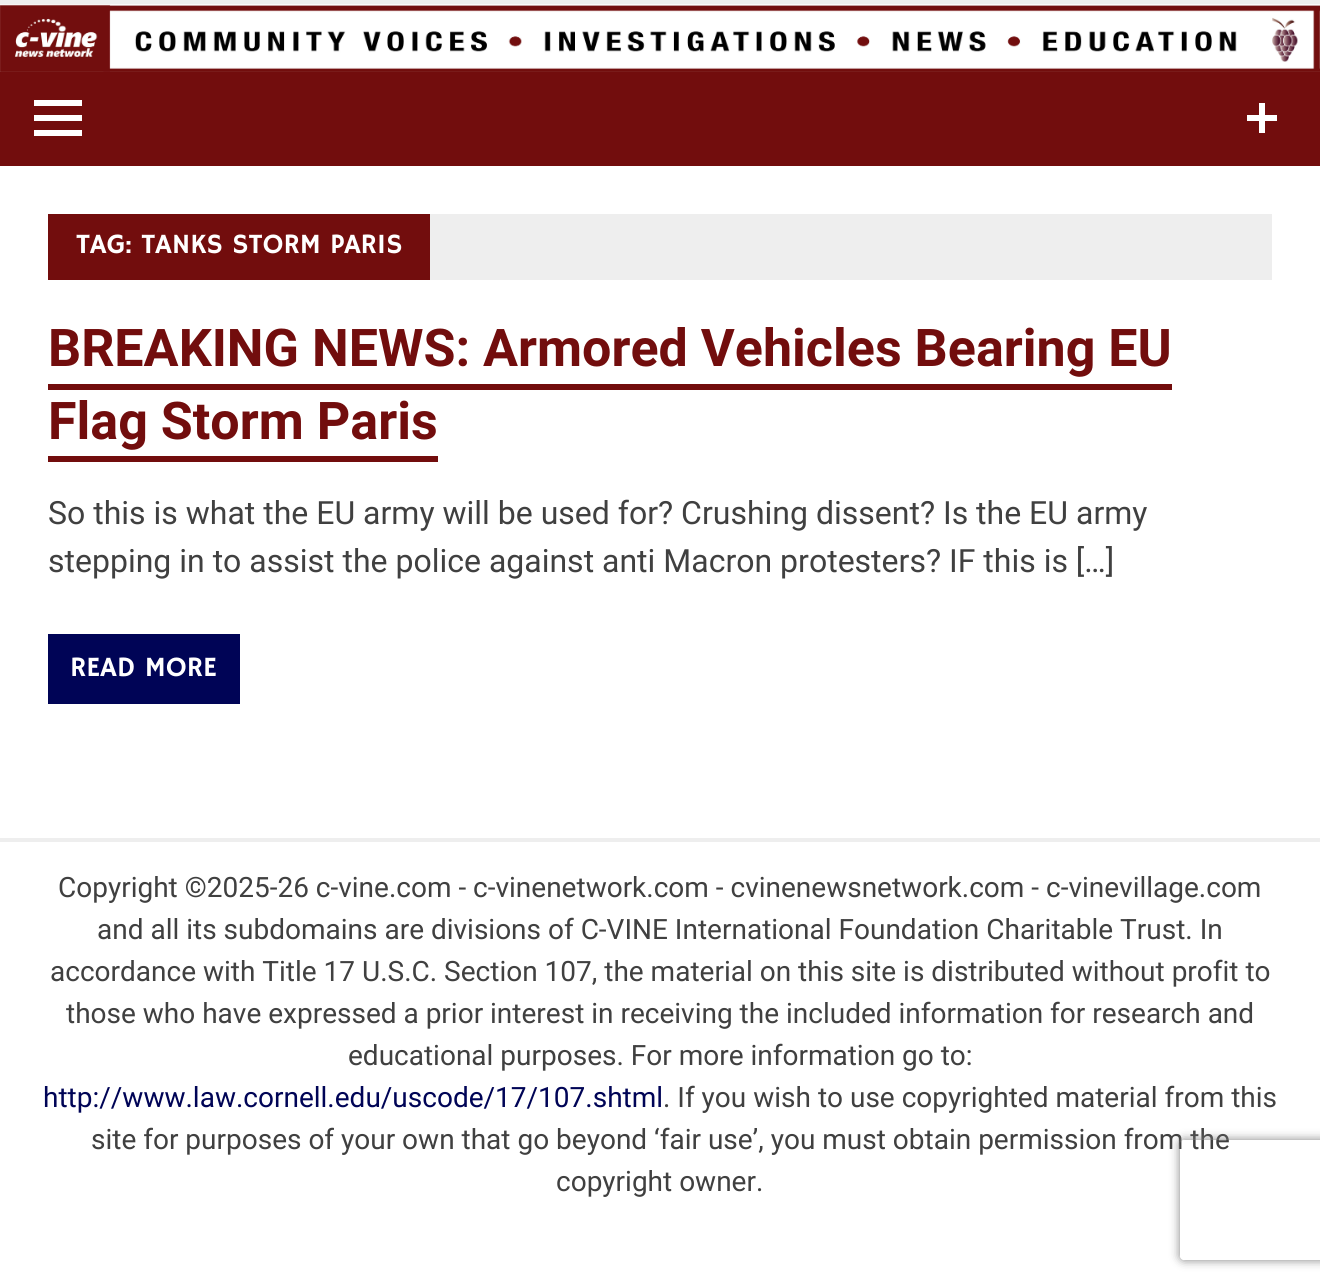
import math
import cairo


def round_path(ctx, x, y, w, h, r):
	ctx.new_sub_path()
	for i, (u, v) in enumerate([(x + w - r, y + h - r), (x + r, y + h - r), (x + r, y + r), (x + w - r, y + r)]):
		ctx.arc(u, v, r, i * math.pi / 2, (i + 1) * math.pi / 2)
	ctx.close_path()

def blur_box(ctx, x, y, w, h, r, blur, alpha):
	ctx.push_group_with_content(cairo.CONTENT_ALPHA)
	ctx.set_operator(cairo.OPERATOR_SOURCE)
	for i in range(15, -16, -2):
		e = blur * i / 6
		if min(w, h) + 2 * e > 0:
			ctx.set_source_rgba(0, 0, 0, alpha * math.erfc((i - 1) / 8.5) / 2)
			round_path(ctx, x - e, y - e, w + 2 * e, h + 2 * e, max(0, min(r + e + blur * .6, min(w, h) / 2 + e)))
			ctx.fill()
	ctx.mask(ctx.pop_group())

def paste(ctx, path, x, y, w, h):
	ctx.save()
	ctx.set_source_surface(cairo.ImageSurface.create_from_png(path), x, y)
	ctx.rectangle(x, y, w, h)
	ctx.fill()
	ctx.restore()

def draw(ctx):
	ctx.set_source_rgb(1, 1, 1)
	ctx.paint()
	ctx.set_source_rgb(0.933, 0.933, 0.933)
	ctx.rectangle(0, 0, 1320, 4)
	ctx.fill()
	paste(ctx, 'media/1.png', 0, 4, 1320, 68)
	ctx.set_source_rgb(0.447, 0.051, 0.051)
	ctx.rectangle(0, 72, 1320, 94)
	ctx.fill()
	paste(ctx, 'media/2.png', 1247, 103, 30, 30)
	ctx.set_source_rgb(1, 1, 1)
	ctx.new_path()
	ctx.move_to(34, 136)
	ctx.line_to(34, 130)
	ctx.line_to(82, 130)
	ctx.line_to(82, 136)
	ctx.close_path()
	ctx.move_to(34, 100)
	ctx.line_to(82, 100)
	ctx.line_to(82, 106)
	ctx.line_to(34, 106)
	ctx.close_path()
	ctx.move_to(34, 121)
	ctx.line_to(34, 115)
	ctx.line_to(82, 115)
	ctx.line_to(82, 121)
	ctx.close_path()
	ctx.fill()
	ctx.set_source_rgb(0.933, 0.933, 0.933)
	ctx.rectangle(430, 214, 842, 66)
	ctx.fill()
	ctx.set_source_rgb(0.447, 0.051, 0.051)
	ctx.rectangle(48, 214, 382, 66)
	ctx.fill()
	ctx.select_font_face('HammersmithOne')
	ctx.set_font_size(28)
	ctx.set_source_rgb(1, 1, 1)
	ctx.move_to(76, 253)
	ctx.show_text('TAG: TANKS STORM PARIS')
	ctx.select_font_face('Roboto', cairo.FONT_SLANT_NORMAL, cairo.FONT_WEIGHT_BOLD)
	ctx.set_font_size(52)
	ctx.set_source_rgb(0.447, 0.051, 0.051)
	ctx.move_to(48, 366)
	ctx.show_text('BREAKING NEWS: Armored Vehicles Bearing EU')
	ctx.rectangle(48, 384, 1124, 6)
	ctx.fill()
	ctx.move_to(48, 439)
	ctx.show_text('Flag Storm Paris')
	ctx.rectangle(48, 456, 390, 6)
	ctx.fill()
	ctx.select_font_face('Roboto')
	ctx.set_font_size(32)
	ctx.set_source_rgb(0.251, 0.251, 0.251)
	ctx.move_to(48, 524)
	ctx.show_text('So this is what the EU army will be used for? Crushing dissent? Is the EU army')
	ctx.move_to(48, 572)
	ctx.show_text('stepping in to assist the police against anti Macron protesters? IF this is […]')
	ctx.set_source_rgb(0, 0.016, 0.337)
	ctx.rectangle(48, 634, 192, 70)
	ctx.fill()
	ctx.select_font_face('HammersmithOne')
	ctx.set_font_size(28)
	ctx.set_source_rgb(1, 1, 1)
	ctx.move_to(70, 676)
	ctx.show_text('READ MORE')
	ctx.set_source_rgb(0.933, 0.933, 0.933)
	ctx.rectangle(0, 838, 1320, 4)
	ctx.fill()
	ctx.select_font_face('Roboto')
	ctx.set_source_rgb(0.251, 0.251, 0.251)
	for x, y, s in [
		(58, 897, 'Copyright ©2025-26 c-vine.com - c-vinenetwork.com - cvinenewsnetwork.com - c-vinevillage.com'),
		(97, 939, 'and all its subdomains are divisions of C-VINE International Foundation Charitable Trust. In'),
		(50, 981, 'accordance with Title 17 U.S.C. Section 107, the material on this site is distributed without profit to'),
		(66, 1023, 'those who have expressed a prior interest in receiving the included information for research and'),
		(348, 1065, 'educational purposes. For more information go to:'),
	]:
		ctx.move_to(x, y)
		ctx.show_text(s)
	ctx.set_source_rgb(0, 0.016, 0.337)
	ctx.move_to(43, 1107)
	ctx.show_text('http://www.law.cornell.edu/uscode/17/107.shtml')
	ctx.set_source_rgb(0.251, 0.251, 0.251)
	for x, y, s in [
		(663, 1107, '. If you wish to use copyrighted material from this'),
		(91, 1149, 'site for purposes of your own that go beyond ‘fair use’, you must obtain permission from the'),
		(556, 1191, 'copyright owner.'),
	]:
		ctx.move_to(x, y)
		ctx.show_text(s)
	ctx.save()
	ctx.set_fill_rule(cairo.FILL_RULE_EVEN_ODD)
	ctx.new_path()
	ctx.move_to(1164, 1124)
	ctx.line_to(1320, 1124)
	ctx.line_to(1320, 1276)
	ctx.line_to(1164, 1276)
	ctx.close_path()
	ctx.move_to(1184, 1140)
	ctx.line_to(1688, 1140)
	ctx.curve_to(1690, 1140, 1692, 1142, 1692, 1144)
	ctx.line_to(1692, 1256)
	ctx.curve_to(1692, 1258, 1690, 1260, 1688, 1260)
	ctx.line_to(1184, 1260)
	ctx.curve_to(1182, 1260, 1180, 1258, 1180, 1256)
	ctx.line_to(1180, 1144)
	ctx.curve_to(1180, 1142, 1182, 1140, 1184, 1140)
	ctx.close_path()
	ctx.clip()
	ctx.set_source_rgb(0.502, 0.502, 0.502)
	blur_box(ctx, 1180, 1140, 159, 120, 4, 5, 1)
	ctx.restore()


surface = cairo.ImageSurface(cairo.FORMAT_RGB24, 1320, 1288)
ctx = cairo.Context(surface)
options = cairo.FontOptions()
options.set_hint_metrics(cairo.HINT_METRICS_OFF)
options.set_hint_style(cairo.HINT_STYLE_NONE)
ctx.set_font_options(options)
ctx.set_miter_limit(4)
draw(ctx)
surface.write_to_png('image.png')
